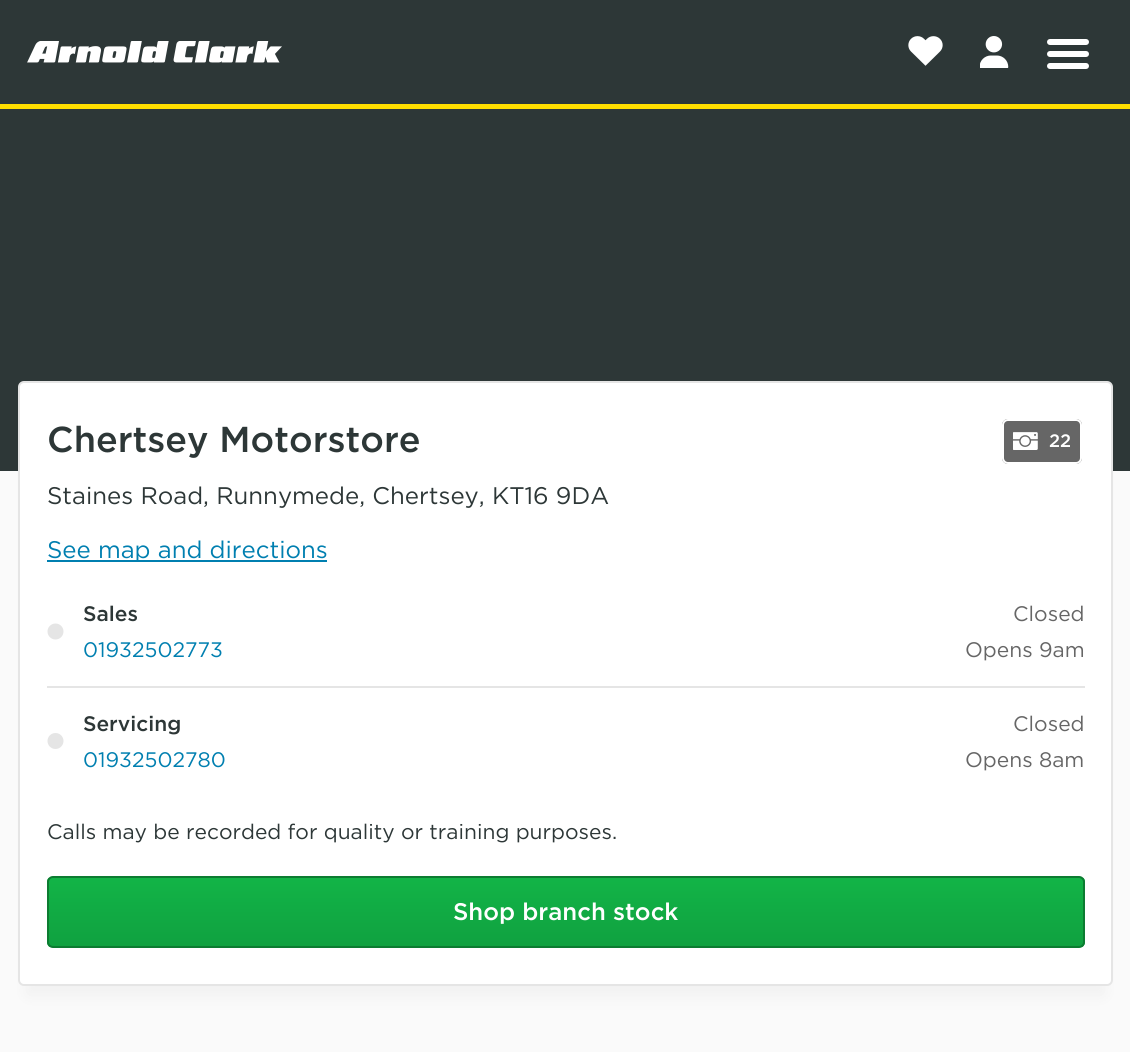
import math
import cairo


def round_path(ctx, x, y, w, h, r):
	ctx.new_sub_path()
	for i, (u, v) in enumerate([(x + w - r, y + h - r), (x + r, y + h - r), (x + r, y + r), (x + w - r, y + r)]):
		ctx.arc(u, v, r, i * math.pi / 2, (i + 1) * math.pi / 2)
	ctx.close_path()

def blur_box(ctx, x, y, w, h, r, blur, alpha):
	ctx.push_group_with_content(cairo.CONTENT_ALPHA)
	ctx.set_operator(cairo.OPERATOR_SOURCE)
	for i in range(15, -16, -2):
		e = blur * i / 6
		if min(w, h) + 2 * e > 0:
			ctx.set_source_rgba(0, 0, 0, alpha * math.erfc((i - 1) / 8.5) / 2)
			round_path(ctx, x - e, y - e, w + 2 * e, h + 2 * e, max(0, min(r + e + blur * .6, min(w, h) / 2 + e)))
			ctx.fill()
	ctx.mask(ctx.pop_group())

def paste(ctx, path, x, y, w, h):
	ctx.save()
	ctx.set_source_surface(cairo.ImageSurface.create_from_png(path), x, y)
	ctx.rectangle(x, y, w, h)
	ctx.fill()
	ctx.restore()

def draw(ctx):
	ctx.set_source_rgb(0.98, 0.98, 0.98)
	ctx.paint()
	ctx.set_source_rgb(0.176, 0.216, 0.216)
	ctx.rectangle(0, 0, 1130, 104)
	ctx.fill()
	ctx.set_source_rgb(1, 0.871, 0)
	ctx.rectangle(0, 104, 1130, 5)
	ctx.fill()
	paste(ctx, 'media/1.png', 27, 41, 255, 22)
	paste(ctx, 'media/2.png', 908, 36, 35, 30)
	paste(ctx, 'media/3.png', 980, 36, 29, 32)
	paste(ctx, 'media/4.png', 1047, 39, 42, 30)
	ctx.set_source_rgb(0.176, 0.216, 0.216)
	ctx.rectangle(0, 109, 1130, 362)
	ctx.fill()
	ctx.set_source_rgb(0, 0, 0)
	blur_box(ctx, 27, 408, 1077, 587, 0, 9, 0.04)
	ctx.set_source_rgb(1, 1, 1)
	round_path(ctx, 19, 382, 1093, 603, 5)
	ctx.fill_preserve()
	ctx.set_source_rgb(0.898, 0.898, 0.898)
	ctx.stroke()
	ctx.select_font_face('Gotham Medium')
	ctx.set_font_size(36)
	ctx.set_source_rgb(0.176, 0.216, 0.216)
	ctx.move_to(47, 452)
	ctx.show_text('Chertsey Motorstore')
	ctx.select_font_face('Gotham')
	ctx.set_font_size(24)
	ctx.move_to(47, 504)
	ctx.show_text('Staines Road, Runnymede, Chertsey, KT16 9DA')
	ctx.set_source_rgb(0.4, 0.4, 0.4)
	round_path(ctx, 1002, 419, 80, 45, 6)
	ctx.fill()
	paste(ctx, 'media/5.png', 1013, 432, 25, 18)
	round_path(ctx, 1003, 420, 78, 43, 5)
	ctx.set_source_rgb(1, 1, 1)
	ctx.stroke()
	ctx.select_font_face('Gotham Medium')
	ctx.set_font_size(18)
	ctx.move_to(1049, 447)
	ctx.show_text('22')
	ctx.set_source_rgb(0, 0.498, 0.69)
	ctx.rectangle(47, 560, 280, 2)
	ctx.fill()
	ctx.select_font_face('Gotham')
	ctx.set_font_size(24)
	ctx.move_to(47, 558)
	ctx.show_text('See map and directions')
	ctx.set_source_rgb(0.898, 0.898, 0.898)
	ctx.new_path()
	ctx.arc(55.5, 631.5, 8, 0, 2 * math.pi)
	ctx.fill()
	ctx.rectangle(47, 686, 1038, 2)
	ctx.fill()
	ctx.select_font_face('Gotham Medium')
	ctx.set_font_size(21)
	ctx.set_source_rgb(0.176, 0.216, 0.216)
	ctx.move_to(83, 621)
	ctx.show_text('Sales')
	ctx.select_font_face('Gotham')
	ctx.set_source_rgb(0, 0.498, 0.69)
	ctx.move_to(83, 657)
	ctx.show_text('01932502773')
	ctx.set_source_rgb(0.4, 0.4, 0.4)
	ctx.move_to(1013, 621)
	ctx.show_text('Closed')
	ctx.move_to(965, 657)
	ctx.show_text('Opens 9am')
	ctx.set_source_rgb(0.898, 0.898, 0.898)
	ctx.new_path()
	ctx.arc(55.5, 741, 8, 0, 2 * math.pi)
	ctx.fill()
	ctx.select_font_face('Gotham Medium')
	ctx.set_source_rgb(0.176, 0.216, 0.216)
	ctx.move_to(83, 731)
	ctx.show_text('Servicing')
	ctx.select_font_face('Gotham')
	ctx.set_source_rgb(0, 0.498, 0.69)
	ctx.move_to(83, 767)
	ctx.show_text('01932502780')
	ctx.set_source_rgb(0.4, 0.4, 0.4)
	ctx.move_to(1013, 731)
	ctx.show_text('Closed')
	ctx.move_to(965, 767)
	ctx.show_text('Opens 8am')
	ctx.set_source_rgb(0.176, 0.216, 0.216)
	ctx.move_to(47, 839)
	ctx.show_text('Calls may be recorded for quality or training purposes.')
	ctx.save()
	round_path(ctx, 47, 876, 1038, 72, 6)
	ctx.clip()
	gradient = cairo.LinearGradient(566, 878, 566, 947)
	gradient.add_color_stop_rgba(0, 0.071, 0.706, 0.278, 1)
	gradient.add_color_stop_rgba(1, 0.063, 0.631, 0.251, 1)
	ctx.set_source(gradient)
	ctx.rectangle(47, 878, 1038, 69)
	ctx.fill()
	ctx.restore()
	round_path(ctx, 48, 877, 1036, 70, 5)
	ctx.set_source_rgb(0.047, 0.486, 0.192)
	ctx.stroke()
	ctx.select_font_face('Gotham Medium')
	ctx.set_font_size(24)
	ctx.set_source_rgb(1, 1, 1)
	ctx.move_to(453, 920)
	ctx.show_text('Shop branch stock')


surface = cairo.ImageSurface(cairo.FORMAT_RGB24, 1130, 1052)
ctx = cairo.Context(surface)
options = cairo.FontOptions()
options.set_hint_metrics(cairo.HINT_METRICS_OFF)
options.set_hint_style(cairo.HINT_STYLE_NONE)
ctx.set_font_options(options)
ctx.set_miter_limit(4)
draw(ctx)
surface.write_to_png('image.png')
